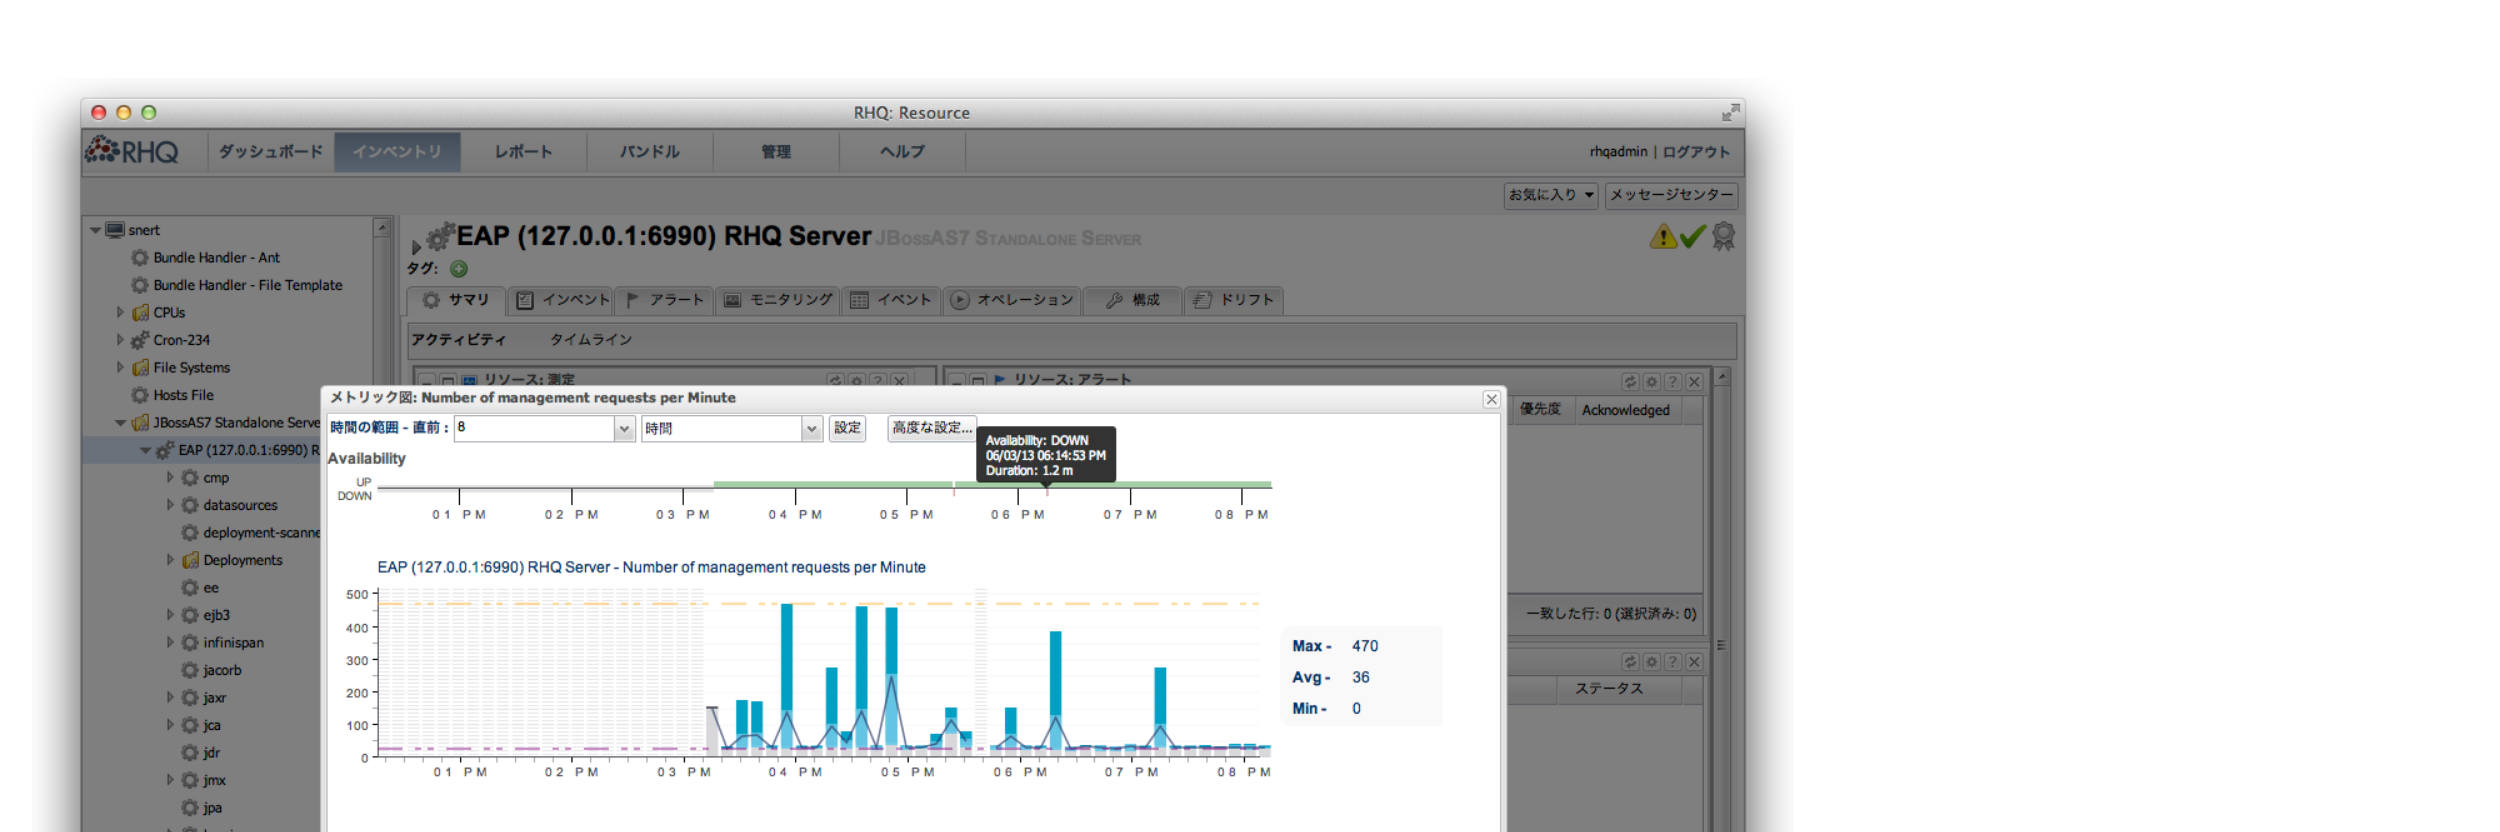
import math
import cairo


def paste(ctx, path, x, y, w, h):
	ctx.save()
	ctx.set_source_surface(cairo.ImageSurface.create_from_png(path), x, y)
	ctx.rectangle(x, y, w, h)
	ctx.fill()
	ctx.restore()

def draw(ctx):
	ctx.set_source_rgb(1, 1, 1)
	ctx.paint()
	paste(ctx, 'media/1.png', 32, 78, 1762, 754)


surface = cairo.ImageSurface(cairo.FORMAT_RGB24, 2500, 832)
ctx = cairo.Context(surface)
options = cairo.FontOptions()
options.set_hint_metrics(cairo.HINT_METRICS_OFF)
options.set_hint_style(cairo.HINT_STYLE_NONE)
ctx.set_font_options(options)
ctx.set_miter_limit(4)
draw(ctx)
surface.write_to_png('image.png')
